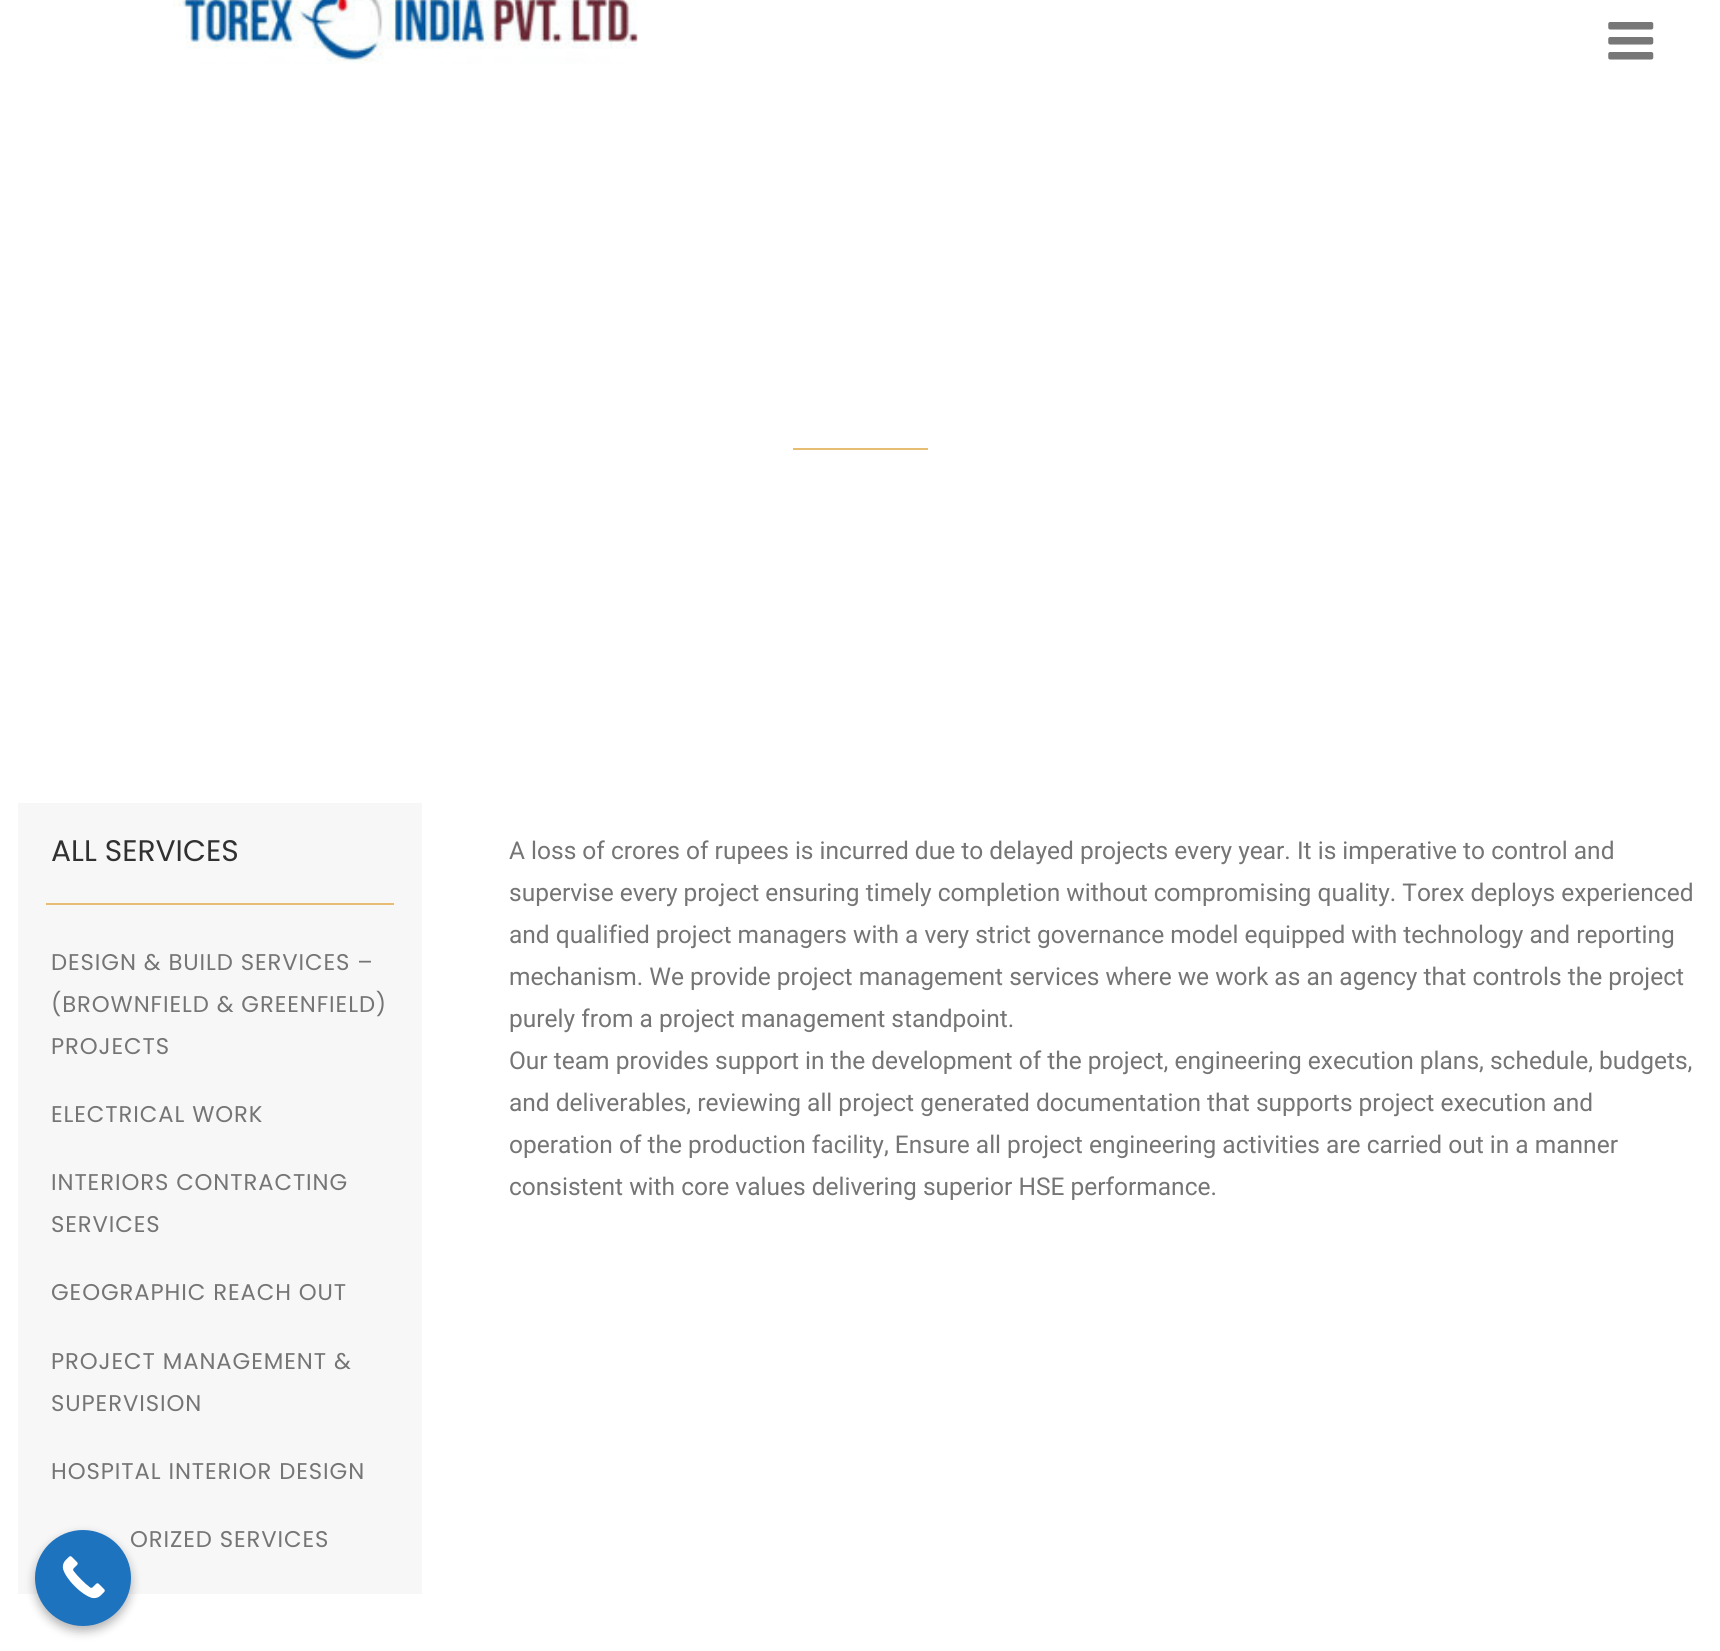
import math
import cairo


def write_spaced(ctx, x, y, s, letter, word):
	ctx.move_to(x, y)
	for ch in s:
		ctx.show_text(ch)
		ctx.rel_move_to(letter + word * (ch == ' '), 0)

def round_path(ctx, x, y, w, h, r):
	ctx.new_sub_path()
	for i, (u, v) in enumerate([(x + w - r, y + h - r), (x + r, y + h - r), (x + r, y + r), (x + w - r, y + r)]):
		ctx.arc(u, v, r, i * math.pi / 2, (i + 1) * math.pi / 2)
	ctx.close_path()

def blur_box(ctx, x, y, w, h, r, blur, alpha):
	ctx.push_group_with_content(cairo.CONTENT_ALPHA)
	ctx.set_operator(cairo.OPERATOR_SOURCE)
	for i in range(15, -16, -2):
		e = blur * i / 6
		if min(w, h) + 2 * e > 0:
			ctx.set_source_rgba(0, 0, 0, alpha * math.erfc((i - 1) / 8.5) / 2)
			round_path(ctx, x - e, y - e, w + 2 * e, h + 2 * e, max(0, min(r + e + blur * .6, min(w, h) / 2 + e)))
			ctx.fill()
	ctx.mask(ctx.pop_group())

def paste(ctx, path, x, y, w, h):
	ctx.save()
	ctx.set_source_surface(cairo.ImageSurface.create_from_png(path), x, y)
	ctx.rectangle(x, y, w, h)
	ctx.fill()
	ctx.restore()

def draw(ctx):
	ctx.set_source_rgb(1, 1, 1)
	ctx.paint()
	paste(ctx, 'media/1.png', 173, 0, 465, 64)
	paste(ctx, 'media/2.png', 1608, 22, 46, 38)
	ctx.set_source_rgb(0.906, 0.741, 0.455)
	ctx.rectangle(793, 448, 135, 2)
	ctx.fill()
	ctx.set_source_rgb(0.965, 0.965, 0.965)
	ctx.rectangle(18, 803, 404, 791)
	ctx.fill()
	ctx.select_font_face('Poppins')
	ctx.set_font_size(29.75)
	ctx.set_source_rgb(0.192, 0.192, 0.192)
	ctx.move_to(51, 861)
	ctx.show_text('ALL SERVICES')
	ctx.set_source_rgb(0.906, 0.741, 0.455)
	ctx.rectangle(46, 903, 348, 2)
	ctx.fill()
	ctx.set_font_size(22.75)
	ctx.set_source_rgb(0.459, 0.459, 0.459)
	for x, y, s in [
		(51, 970, 'DESIGN & BUILD SERVICES –'),
		(51, 1012, '(BROWNFIELD & GREENFIELD)'),
		(51, 1054, 'PROJECTS'),
		(51, 1122, 'ELECTRICAL WORK'),
		(51, 1190, 'INTERIORS CONTRACTING'),
		(51, 1232, 'SERVICES'),
		(51, 1300, 'GEOGRAPHIC REACH OUT'),
		(51, 1369, 'PROJECT MANAGEMENT &'),
		(51, 1411, 'SUPERVISION'),
		(51, 1479, 'HOSPITAL INTERIOR DESIGN'),
		(130, 1547, 'ORIZED SERVICES'),
	]:
		write_spaced(ctx, x, y, s, 0.9, 0)
	ctx.select_font_face('Roboto')
	ctx.set_font_size(24.5)
	for x, y, s in [
		(509, 859, 'A loss of crores of rupees is incurred due to delayed projects every year. It is imperative to control and'),
		(509, 901, 'supervise every project ensuring timely completion without compromising quality. Torex deploys experienced'),
		(509, 943, 'and qualified project managers with a very strict governance model equipped with technology and reporting'),
		(509, 985, 'mechanism. We provide project management services where we work as an agency that controls the project'),
		(509, 1027, 'purely from a project management standpoint.'),
		(509, 1069, 'Our team provides support in the development of the project, engineering execution plans, schedule, budgets,'),
		(509, 1111, 'and deliverables, reviewing all project generated documentation that supports project execution and'),
		(509, 1153, 'operation of the production facility, Ensure all project engineering activities are carried out in a manner'),
		(509, 1195, 'consistent with core values delivering superior HSE performance.'),
	]:
		ctx.move_to(x, y)
		ctx.show_text(s)
	ctx.set_source_rgb(0, 0, 0)
	blur_box(ctx, 35, 1535, 96, 96, 48, 5, 0.3)
	ctx.set_source_rgb(0.118, 0.451, 0.745)
	ctx.arc(83, 1578, 48, 0, 2 * math.pi)
	ctx.fill()
	paste(ctx, 'media/3.png', 62, 1556, 43, 43)


surface = cairo.ImageSurface(cairo.FORMAT_RGB24, 1720, 1651)
ctx = cairo.Context(surface)
options = cairo.FontOptions()
options.set_hint_metrics(cairo.HINT_METRICS_OFF)
options.set_hint_style(cairo.HINT_STYLE_NONE)
ctx.set_font_options(options)
ctx.set_miter_limit(4)
draw(ctx)
surface.write_to_png('image.png')
